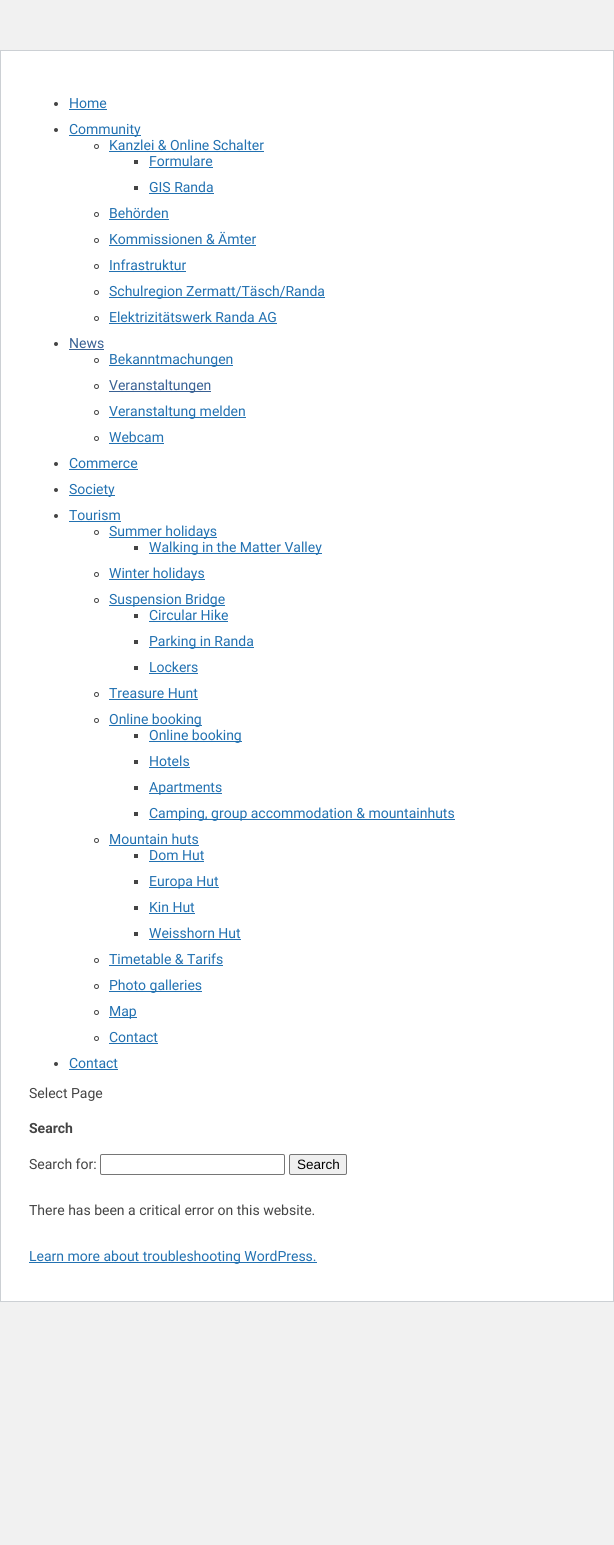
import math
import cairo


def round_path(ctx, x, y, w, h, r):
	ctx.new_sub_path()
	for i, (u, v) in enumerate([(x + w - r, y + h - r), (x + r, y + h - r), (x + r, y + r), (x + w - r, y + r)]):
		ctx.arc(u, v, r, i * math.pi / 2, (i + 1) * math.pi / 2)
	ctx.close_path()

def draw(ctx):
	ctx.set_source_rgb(0.945, 0.945, 0.945)
	ctx.paint()
	ctx.set_source_rgb(1, 1, 1)
	ctx.rectangle(0.5, 50.5, 613, 1251)
	ctx.fill_preserve()
	ctx.set_source_rgb(0.8, 0.816, 0.831)
	ctx.set_line_width(1)
	ctx.stroke()
	ctx.set_source_rgb(0.267, 0.267, 0.267)
	ctx.arc(56, 104, 2, 0, 2 * math.pi)
	ctx.fill()
	ctx.select_font_face('Roboto')
	ctx.set_font_size(14)
	ctx.set_source_rgb(0.133, 0.443, 0.694)
	ctx.move_to(69, 108)
	ctx.show_text('Home')
	ctx.rectangle(69, 109, 38, 1)
	ctx.fill()
	ctx.set_source_rgb(0.267, 0.267, 0.267)
	ctx.arc(56, 130, 2, 0, 2 * math.pi)
	ctx.fill()
	ctx.set_source_rgb(0.133, 0.443, 0.694)
	ctx.rectangle(69, 135, 72, 1)
	ctx.fill()
	ctx.move_to(69, 134)
	ctx.show_text('Community')
	ctx.new_path()
	ctx.arc(96.5, 146.5, 2, 0, 2 * math.pi)
	ctx.set_source_rgb(0.267, 0.267, 0.267)
	ctx.stroke()
	ctx.set_source_rgb(0.133, 0.443, 0.694)
	ctx.move_to(109, 150)
	ctx.show_text('Kanzlei & Online Schalter')
	ctx.rectangle(109, 151, 155, 1)
	ctx.fill()
	ctx.set_source_rgb(0.267, 0.267, 0.267)
	ctx.rectangle(134, 160, 4, 4)
	ctx.fill()
	ctx.set_source_rgb(0.133, 0.443, 0.694)
	ctx.move_to(149, 166)
	ctx.show_text('Formulare')
	ctx.rectangle(149, 167, 64, 1)
	ctx.fill()
	ctx.set_source_rgb(0.267, 0.267, 0.267)
	ctx.rectangle(134, 186, 4, 4)
	ctx.fill()
	ctx.set_source_rgb(0.133, 0.443, 0.694)
	ctx.move_to(149, 192)
	ctx.show_text('GIS Randa')
	ctx.rectangle(149, 193, 65, 1)
	ctx.fill()
	ctx.arc(96.5, 214.5, 2, 0, 2 * math.pi)
	ctx.set_source_rgb(0.267, 0.267, 0.267)
	ctx.stroke()
	ctx.set_source_rgb(0.133, 0.443, 0.694)
	ctx.move_to(109, 218)
	ctx.show_text('Behörden')
	ctx.rectangle(109, 219, 60, 1)
	ctx.fill()
	ctx.arc(96.5, 240.5, 2, 0, 2 * math.pi)
	ctx.set_source_rgb(0.267, 0.267, 0.267)
	ctx.stroke()
	ctx.set_source_rgb(0.133, 0.443, 0.694)
	ctx.move_to(109, 244)
	ctx.show_text('Kommissionen & Ämter')
	ctx.rectangle(109, 245, 147, 1)
	ctx.fill()
	ctx.arc(96.5, 266.5, 2, 0, 2 * math.pi)
	ctx.set_source_rgb(0.267, 0.267, 0.267)
	ctx.stroke()
	ctx.set_source_rgb(0.133, 0.443, 0.694)
	ctx.move_to(109, 270)
	ctx.show_text('Infrastruktur')
	ctx.rectangle(109, 271, 77, 1)
	ctx.fill()
	ctx.arc(96.5, 292.5, 2, 0, 2 * math.pi)
	ctx.set_source_rgb(0.267, 0.267, 0.267)
	ctx.stroke()
	ctx.set_source_rgb(0.133, 0.443, 0.694)
	ctx.rectangle(109, 297, 216, 1)
	ctx.fill()
	ctx.move_to(109, 296)
	ctx.show_text('Schulregion Zermatt/Täsch/Randa')
	ctx.new_path()
	ctx.arc(96.5, 318.5, 2, 0, 2 * math.pi)
	ctx.set_source_rgb(0.267, 0.267, 0.267)
	ctx.stroke()
	ctx.set_source_rgb(0.133, 0.443, 0.694)
	ctx.move_to(109, 322)
	ctx.show_text('Elektrizitätswerk Randa AG')
	ctx.rectangle(109, 323, 168, 1)
	ctx.fill()
	ctx.set_source_rgb(0.267, 0.267, 0.267)
	ctx.arc(56, 344, 2, 0, 2 * math.pi)
	ctx.fill()
	ctx.set_source_rgb(0.224, 0.38, 0.58)
	ctx.move_to(69, 348)
	ctx.show_text('News')
	ctx.rectangle(69, 349, 35, 1)
	ctx.fill()
	ctx.arc(96.5, 360.5, 2, 0, 2 * math.pi)
	ctx.set_source_rgb(0.267, 0.267, 0.267)
	ctx.stroke()
	ctx.set_source_rgb(0.133, 0.443, 0.694)
	ctx.rectangle(109, 365, 124, 1)
	ctx.fill()
	ctx.move_to(109, 364)
	ctx.show_text('Bekanntmachungen')
	ctx.new_path()
	ctx.arc(96.5, 386.5, 2, 0, 2 * math.pi)
	ctx.set_source_rgb(0.267, 0.267, 0.267)
	ctx.stroke()
	ctx.set_source_rgb(0.224, 0.38, 0.58)
	ctx.rectangle(109, 391, 102, 1)
	ctx.fill()
	ctx.move_to(109, 390)
	ctx.show_text('Veranstaltungen')
	ctx.new_path()
	ctx.arc(96.5, 412.5, 2, 0, 2 * math.pi)
	ctx.set_source_rgb(0.267, 0.267, 0.267)
	ctx.stroke()
	ctx.set_source_rgb(0.133, 0.443, 0.694)
	ctx.rectangle(109, 417, 137, 1)
	ctx.fill()
	ctx.move_to(109, 416)
	ctx.show_text('Veranstaltung melden')
	ctx.new_path()
	ctx.arc(96.5, 438.5, 2, 0, 2 * math.pi)
	ctx.set_source_rgb(0.267, 0.267, 0.267)
	ctx.stroke()
	ctx.set_source_rgb(0.133, 0.443, 0.694)
	ctx.move_to(109, 442)
	ctx.show_text('Webcam')
	ctx.rectangle(109, 443, 55, 1)
	ctx.fill()
	ctx.set_source_rgb(0.267, 0.267, 0.267)
	ctx.arc(56, 464, 2, 0, 2 * math.pi)
	ctx.fill()
	ctx.set_source_rgb(0.133, 0.443, 0.694)
	ctx.move_to(69, 468)
	ctx.show_text('Commerce')
	ctx.rectangle(69, 469, 69, 1)
	ctx.fill()
	ctx.set_source_rgb(0.267, 0.267, 0.267)
	ctx.arc(56, 490, 2, 0, 2 * math.pi)
	ctx.fill()
	ctx.set_source_rgb(0.133, 0.443, 0.694)
	ctx.rectangle(69, 495, 46, 1)
	ctx.fill()
	ctx.move_to(69, 494)
	ctx.show_text('Society')
	ctx.set_source_rgb(0.267, 0.267, 0.267)
	ctx.new_path()
	ctx.arc(56, 516, 2, 0, 2 * math.pi)
	ctx.fill()
	ctx.set_source_rgb(0.133, 0.443, 0.694)
	ctx.move_to(69, 520)
	ctx.show_text('Tourism')
	ctx.rectangle(69, 521, 52, 1)
	ctx.fill()
	ctx.arc(96.5, 532.5, 2, 0, 2 * math.pi)
	ctx.set_source_rgb(0.267, 0.267, 0.267)
	ctx.stroke()
	ctx.set_source_rgb(0.133, 0.443, 0.694)
	ctx.rectangle(109, 537, 108, 1)
	ctx.fill()
	ctx.move_to(109, 536)
	ctx.show_text('Summer holidays')
	ctx.set_source_rgb(0.267, 0.267, 0.267)
	ctx.rectangle(134, 546, 4, 4)
	ctx.fill()
	ctx.set_source_rgb(0.133, 0.443, 0.694)
	ctx.rectangle(149, 553, 173, 1)
	ctx.fill()
	ctx.move_to(149, 552)
	ctx.show_text('Walking in the Matter Valley')
	ctx.new_path()
	ctx.arc(96.5, 574.5, 2, 0, 2 * math.pi)
	ctx.set_source_rgb(0.267, 0.267, 0.267)
	ctx.stroke()
	ctx.set_source_rgb(0.133, 0.443, 0.694)
	ctx.rectangle(109, 579, 96, 1)
	ctx.fill()
	ctx.move_to(109, 578)
	ctx.show_text('Winter holidays')
	ctx.new_path()
	ctx.arc(96.5, 600.5, 2, 0, 2 * math.pi)
	ctx.set_source_rgb(0.267, 0.267, 0.267)
	ctx.stroke()
	ctx.set_source_rgb(0.133, 0.443, 0.694)
	ctx.rectangle(109, 605, 116, 1)
	ctx.fill()
	ctx.move_to(109, 604)
	ctx.show_text('Suspension Bridge')
	ctx.set_source_rgb(0.267, 0.267, 0.267)
	ctx.rectangle(134, 614, 4, 4)
	ctx.fill()
	ctx.set_source_rgb(0.133, 0.443, 0.694)
	ctx.move_to(149, 620)
	ctx.show_text('Circular Hike')
	ctx.rectangle(149, 621, 79, 1)
	ctx.fill()
	ctx.set_source_rgb(0.267, 0.267, 0.267)
	ctx.rectangle(134, 640, 4, 4)
	ctx.fill()
	ctx.set_source_rgb(0.133, 0.443, 0.694)
	ctx.rectangle(149, 647, 105, 1)
	ctx.fill()
	ctx.move_to(149, 646)
	ctx.show_text('Parking in Randa')
	ctx.set_source_rgb(0.267, 0.267, 0.267)
	ctx.rectangle(134, 666, 4, 4)
	ctx.fill()
	ctx.set_source_rgb(0.133, 0.443, 0.694)
	ctx.move_to(149, 672)
	ctx.show_text('Lockers')
	ctx.rectangle(149, 673, 49, 1)
	ctx.fill()
	ctx.arc(96.5, 694.5, 2, 0, 2 * math.pi)
	ctx.set_source_rgb(0.267, 0.267, 0.267)
	ctx.stroke()
	ctx.set_source_rgb(0.133, 0.443, 0.694)
	ctx.move_to(109, 698)
	ctx.show_text('Treasure Hunt')
	ctx.rectangle(109, 699, 89, 1)
	ctx.fill()
	ctx.arc(96.5, 720.5, 2, 0, 2 * math.pi)
	ctx.set_source_rgb(0.267, 0.267, 0.267)
	ctx.stroke()
	ctx.set_source_rgb(0.133, 0.443, 0.694)
	ctx.rectangle(109, 725, 93, 1)
	ctx.fill()
	ctx.move_to(109, 724)
	ctx.show_text('Online booking')
	ctx.set_source_rgb(0.267, 0.267, 0.267)
	ctx.rectangle(134, 734, 4, 4)
	ctx.fill()
	ctx.set_source_rgb(0.133, 0.443, 0.694)
	ctx.rectangle(149, 741, 93, 1)
	ctx.fill()
	ctx.move_to(149, 740)
	ctx.show_text('Online booking')
	ctx.set_source_rgb(0.267, 0.267, 0.267)
	ctx.rectangle(134, 760, 4, 4)
	ctx.fill()
	ctx.set_source_rgb(0.133, 0.443, 0.694)
	ctx.move_to(149, 766)
	ctx.show_text('Hotels')
	ctx.rectangle(149, 767, 41, 1)
	ctx.fill()
	ctx.set_source_rgb(0.267, 0.267, 0.267)
	ctx.rectangle(134, 786, 4, 4)
	ctx.fill()
	ctx.set_source_rgb(0.133, 0.443, 0.694)
	ctx.rectangle(149, 793, 73, 1)
	ctx.fill()
	ctx.move_to(149, 792)
	ctx.show_text('Apartments')
	ctx.set_source_rgb(0.267, 0.267, 0.267)
	ctx.rectangle(134, 812, 4, 4)
	ctx.fill()
	ctx.set_source_rgb(0.133, 0.443, 0.694)
	ctx.rectangle(149, 819, 306, 1)
	ctx.fill()
	ctx.move_to(149, 818)
	ctx.show_text('Camping, group accommodation & mountainhuts')
	ctx.new_path()
	ctx.arc(96.5, 840.5, 2, 0, 2 * math.pi)
	ctx.set_source_rgb(0.267, 0.267, 0.267)
	ctx.stroke()
	ctx.set_source_rgb(0.133, 0.443, 0.694)
	ctx.move_to(109, 844)
	ctx.show_text('Mountain huts')
	ctx.rectangle(109, 845, 90, 1)
	ctx.fill()
	ctx.set_source_rgb(0.267, 0.267, 0.267)
	ctx.rectangle(134, 854, 4, 4)
	ctx.fill()
	ctx.set_source_rgb(0.133, 0.443, 0.694)
	ctx.move_to(149, 860)
	ctx.show_text('Dom Hut')
	ctx.rectangle(149, 861, 55, 1)
	ctx.fill()
	ctx.set_source_rgb(0.267, 0.267, 0.267)
	ctx.rectangle(134, 880, 4, 4)
	ctx.fill()
	ctx.set_source_rgb(0.133, 0.443, 0.694)
	ctx.rectangle(149, 887, 70, 1)
	ctx.fill()
	ctx.move_to(149, 886)
	ctx.show_text('Europa Hut')
	ctx.set_source_rgb(0.267, 0.267, 0.267)
	ctx.rectangle(134, 906, 4, 4)
	ctx.fill()
	ctx.set_source_rgb(0.133, 0.443, 0.694)
	ctx.move_to(149, 912)
	ctx.show_text('Kin Hut')
	ctx.rectangle(149, 913, 46, 1)
	ctx.fill()
	ctx.set_source_rgb(0.267, 0.267, 0.267)
	ctx.rectangle(134, 932, 4, 4)
	ctx.fill()
	ctx.set_source_rgb(0.133, 0.443, 0.694)
	ctx.move_to(149, 938)
	ctx.show_text('Weisshorn Hut')
	ctx.rectangle(149, 939, 92, 1)
	ctx.fill()
	ctx.arc(96.5, 960.5, 2, 0, 2 * math.pi)
	ctx.set_source_rgb(0.267, 0.267, 0.267)
	ctx.stroke()
	ctx.set_source_rgb(0.133, 0.443, 0.694)
	ctx.move_to(109, 964)
	ctx.show_text('Timetable & Tarifs')
	ctx.rectangle(109, 965, 114, 1)
	ctx.fill()
	ctx.arc(96.5, 986.5, 2, 0, 2 * math.pi)
	ctx.set_source_rgb(0.267, 0.267, 0.267)
	ctx.stroke()
	ctx.set_source_rgb(0.133, 0.443, 0.694)
	ctx.rectangle(109, 991, 93, 1)
	ctx.fill()
	ctx.move_to(109, 990)
	ctx.show_text('Photo galleries')
	ctx.new_path()
	ctx.arc(96.5, 1012.5, 2, 0, 2 * math.pi)
	ctx.set_source_rgb(0.267, 0.267, 0.267)
	ctx.stroke()
	ctx.set_source_rgb(0.133, 0.443, 0.694)
	ctx.rectangle(109, 1017, 28, 1)
	ctx.fill()
	ctx.move_to(109, 1016)
	ctx.show_text('Map')
	ctx.new_path()
	ctx.arc(96.5, 1038.5, 2, 0, 2 * math.pi)
	ctx.set_source_rgb(0.267, 0.267, 0.267)
	ctx.stroke()
	ctx.set_source_rgb(0.133, 0.443, 0.694)
	ctx.move_to(109, 1042)
	ctx.show_text('Contact')
	ctx.rectangle(109, 1043, 49, 1)
	ctx.fill()
	ctx.set_source_rgb(0.267, 0.267, 0.267)
	ctx.arc(56, 1064, 2, 0, 2 * math.pi)
	ctx.fill()
	ctx.set_source_rgb(0.133, 0.443, 0.694)
	ctx.move_to(69, 1068)
	ctx.show_text('Contact')
	ctx.rectangle(69, 1069, 49, 1)
	ctx.fill()
	ctx.set_source_rgb(0.267, 0.267, 0.267)
	ctx.move_to(29, 1098)
	ctx.show_text('Select Page')
	ctx.select_font_face('Roboto', cairo.FONT_SLANT_NORMAL, cairo.FONT_WEIGHT_BOLD)
	ctx.move_to(29, 1133)
	ctx.show_text('Search')
	ctx.select_font_face('Roboto')
	ctx.move_to(29, 1169)
	ctx.show_text('Search for:')
	round_path(ctx, 100.5, 1154.5, 184, 20, 1.5)
	ctx.set_source_rgb(0.463, 0.463, 0.463)
	ctx.stroke()
	ctx.set_source_rgb(0.937, 0.937, 0.937)
	round_path(ctx, 289.5, 1154.5, 57, 20, 1.5)
	ctx.fill_preserve()
	ctx.set_source_rgb(0.463, 0.463, 0.463)
	ctx.stroke()
	ctx.select_font_face('Liberation Sans')
	ctx.set_font_size(13.5)
	ctx.set_source_rgb(0, 0, 0)
	ctx.move_to(297, 1169)
	ctx.show_text('Search')
	ctx.select_font_face('Roboto')
	ctx.set_font_size(14)
	ctx.set_source_rgb(0.267, 0.267, 0.267)
	ctx.move_to(29, 1215)
	ctx.show_text('There has been a critical error on this website.')
	ctx.set_source_rgb(0.133, 0.443, 0.694)
	ctx.rectangle(29, 1262, 288, 1)
	ctx.fill()
	ctx.move_to(29, 1261)
	ctx.show_text('Learn more about troubleshooting WordPress.')


surface = cairo.ImageSurface(cairo.FORMAT_RGB24, 614, 1545)
ctx = cairo.Context(surface)
options = cairo.FontOptions()
options.set_hint_metrics(cairo.HINT_METRICS_OFF)
options.set_hint_style(cairo.HINT_STYLE_NONE)
ctx.set_font_options(options)
ctx.set_miter_limit(4)
draw(ctx)
surface.write_to_png('image.png')
